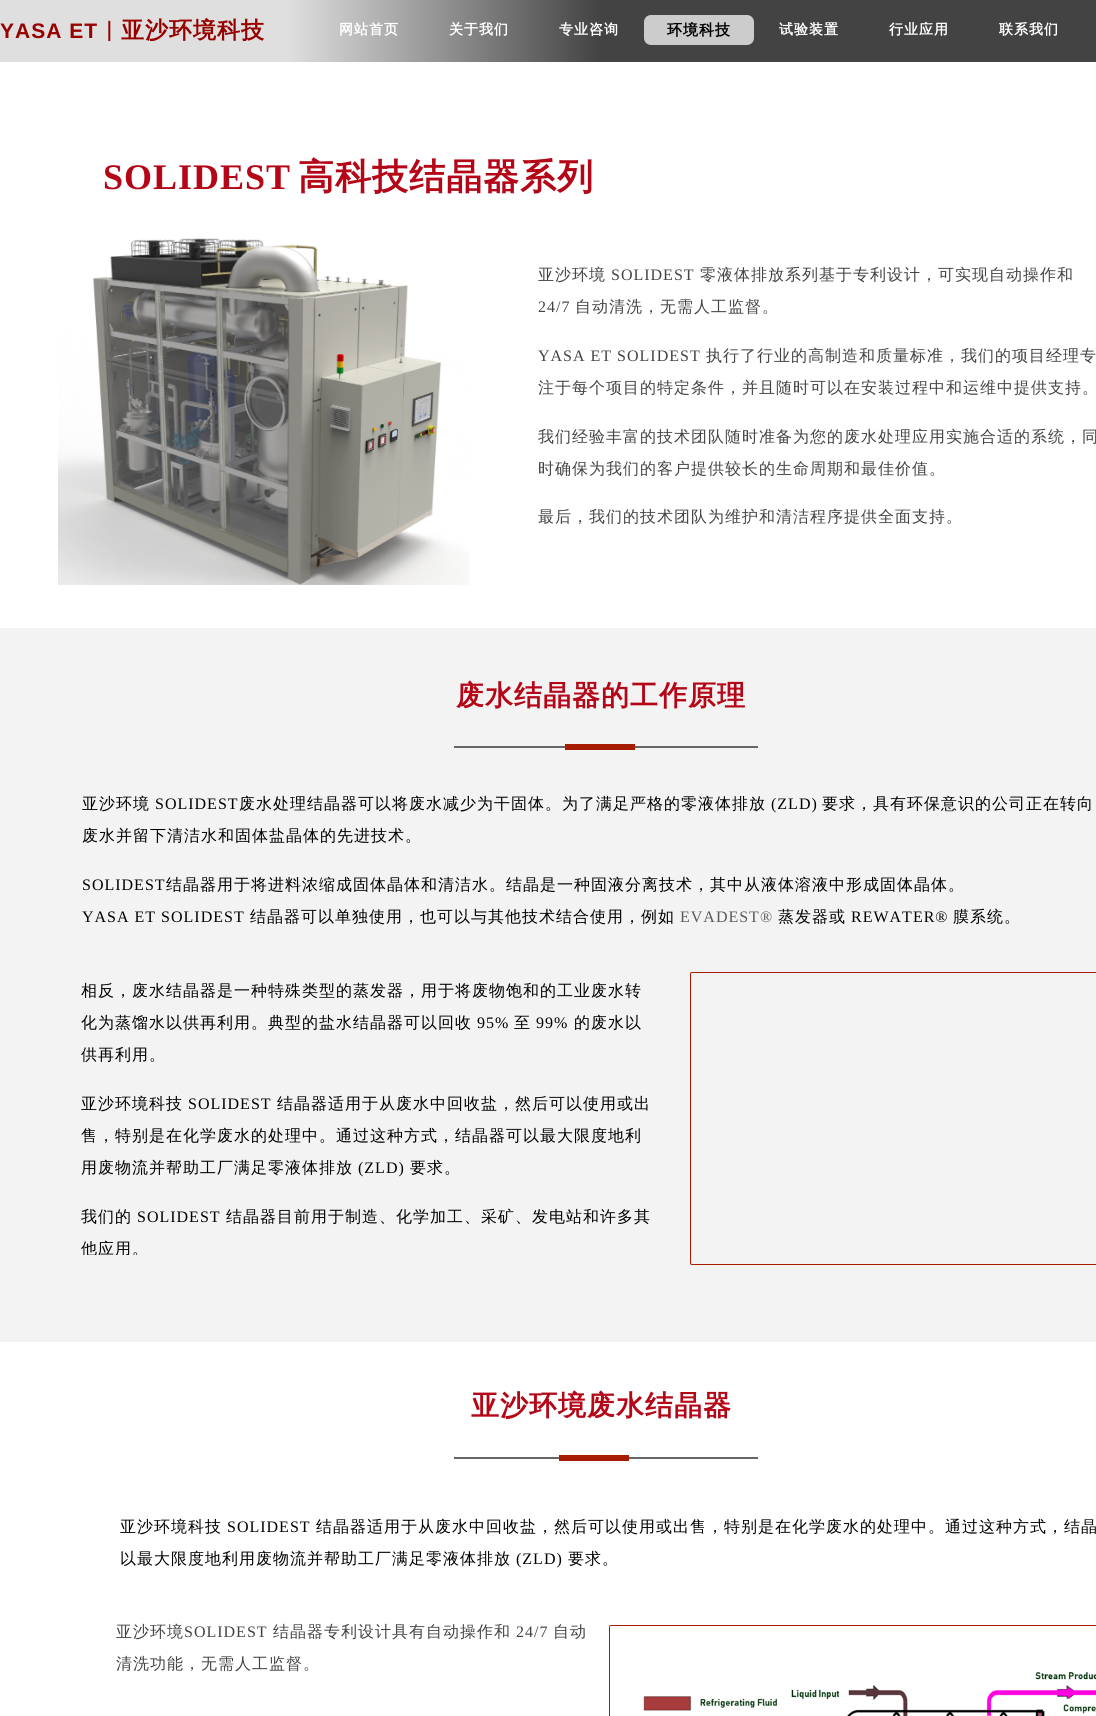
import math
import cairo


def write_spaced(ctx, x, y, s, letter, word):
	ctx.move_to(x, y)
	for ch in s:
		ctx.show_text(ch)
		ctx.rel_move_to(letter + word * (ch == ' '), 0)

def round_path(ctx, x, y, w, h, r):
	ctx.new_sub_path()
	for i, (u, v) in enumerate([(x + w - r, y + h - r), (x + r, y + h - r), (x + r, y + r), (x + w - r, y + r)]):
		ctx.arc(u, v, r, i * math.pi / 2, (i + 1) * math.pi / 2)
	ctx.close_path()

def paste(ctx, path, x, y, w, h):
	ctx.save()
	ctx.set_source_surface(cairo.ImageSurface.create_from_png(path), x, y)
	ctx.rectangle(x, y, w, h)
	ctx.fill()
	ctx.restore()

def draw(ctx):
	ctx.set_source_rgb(1, 1, 1)
	ctx.paint()
	gradient = cairo.LinearGradient(0, 31, 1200, 31)
	gradient.add_color_stop_rgba(0.24, 0.875, 0.875, 0.875, 1)
	gradient.add_color_stop_rgba(0.5, 0.263, 0.263, 0.263, 1)
	ctx.set_source(gradient)
	ctx.rectangle(0, 0, 1096, 62)
	ctx.fill()
	ctx.select_font_face('Liberation Sans', cairo.FONT_SLANT_NORMAL, cairo.FONT_WEIGHT_BOLD)
	ctx.set_font_size(21)
	ctx.set_source_rgb(0.596, 0, 0)
	write_spaced(ctx, 0, 38, 'YASA ET', 1, 0)
	ctx.save()
	ctx.rectangle(0, 15, 279, 26)
	ctx.clip()
	ctx.select_font_face('WenQuanYi Zen Hei', cairo.FONT_SLANT_NORMAL, cairo.FONT_WEIGHT_BOLD)
	ctx.set_font_size(22)
	write_spaced(ctx, 98, 38, '｜', 1, 0)
	ctx.set_font_size(23)
	write_spaced(ctx, 121, 38, '亚沙环境科技', 1, 0)
	ctx.restore()
	ctx.select_font_face('WenQuanYi Zen Hei', cairo.FONT_SLANT_NORMAL, cairo.FONT_WEIGHT_BOLD)
	ctx.set_font_size(14)
	ctx.set_source_rgb(1, 1, 1)
	for x, y, s in [
		(339, 34, '网站首页'),
		(449, 34, '关于我们'),
		(559, 34, '专业咨询'),
	]:
		write_spaced(ctx, x, y, s, 1, 0)
	ctx.set_source_rgb(0.8, 0.8, 0.8)
	round_path(ctx, 644, 15, 110, 30, 7)
	ctx.fill()
	ctx.set_font_size(15)
	ctx.set_source_rgb(0, 0, 0)
	write_spaced(ctx, 667, 35, '环境科技', 1, 0)
	ctx.set_font_size(14)
	ctx.set_source_rgb(1, 1, 1)
	for x, y, s in [
		(779, 34, '试验装置'),
		(889, 34, '行业应用'),
		(999, 34, '联系我们'),
	]:
		write_spaced(ctx, x, y, s, 1, 0)
	ctx.select_font_face('Liberation Serif', cairo.FONT_SLANT_NORMAL, cairo.FONT_WEIGHT_BOLD)
	ctx.set_font_size(36)
	ctx.set_source_rgb(0.71, 0.027, 0.09)
	write_spaced(ctx, 103, 189, 'SOLIDEST', 1, 0)
	ctx.select_font_face('WenQuanYi Zen Hei', cairo.FONT_SLANT_NORMAL, cairo.FONT_WEIGHT_BOLD)
	write_spaced(ctx, 298, 189, '高科技结晶器系列', 1, 0)
	paste(ctx, 'media/1.png', 58, 238, 411, 347)
	ctx.select_font_face('WenQuanYi Zen Hei Medium')
	ctx.set_font_size(16)
	ctx.set_source_rgb(0.263, 0.263, 0.263)
	write_spaced(ctx, 538, 280, '亚沙环境', 1, 0)
	ctx.select_font_face('Liberation Serif')
	write_spaced(ctx, 611, 280, 'SOLIDEST', 1, 0)
	ctx.select_font_face('WenQuanYi Zen Hei Medium')
	write_spaced(ctx, 700, 280, '零液体排放系列基于专利设计，可实现自动操作和', 1, 0)
	ctx.select_font_face('Liberation Serif')
	write_spaced(ctx, 538, 312, '24/7', 1, 0)
	ctx.select_font_face('WenQuanYi Zen Hei Medium')
	write_spaced(ctx, 575, 312, '自动清洗，无需人工监督。', 1, 0)
	ctx.select_font_face('Liberation Serif')
	write_spaced(ctx, 538, 361, 'YASA ET SOLIDEST', 1, 0)
	ctx.select_font_face('WenQuanYi Zen Hei Medium')
	for x, y, s in [
		(706, 361, '执行了行业的高制造和质量标准，我们的项目经理专'),
		(538, 393, '注于每个项目的特定条件，并且随时可以在安装过程中和运维中提供支持。'),
		(538, 442, '我们经验丰富的技术团队随时准备为您的废水处理应用实施合适的系统，同'),
		(538, 474, '时确保为我们的客户提供较长的生命周期和最佳价值。'),
		(538, 522, '最后，我们的技术团队为维护和清洁程序提供全面支持。'),
	]:
		write_spaced(ctx, x, y, s, 1, 0)
	ctx.set_source_rgb(0.953, 0.953, 0.953)
	ctx.rectangle(0, 628, 1096, 714)
	ctx.fill()
	ctx.select_font_face('WenQuanYi Zen Hei', cairo.FONT_SLANT_NORMAL, cairo.FONT_WEIGHT_BOLD)
	ctx.set_font_size(28)
	ctx.set_source_rgb(0.71, 0.027, 0.09)
	write_spaced(ctx, 456, 705, '废水结晶器的工作原理', 1, 0)
	ctx.set_source_rgb(0.4, 0.4, 0.4)
	ctx.rectangle(454, 746, 304, 2)
	ctx.fill()
	ctx.set_source_rgb(0.651, 0.11, 0)
	ctx.rectangle(565, 744, 70, 6)
	ctx.fill()
	ctx.select_font_face('WenQuanYi Zen Hei Medium')
	ctx.set_font_size(16)
	ctx.set_source_rgb(0, 0, 0)
	write_spaced(ctx, 82, 809, '亚沙环境', 1, 0)
	ctx.select_font_face('Liberation Serif')
	write_spaced(ctx, 155, 809, 'SOLIDEST', 1, 0)
	ctx.select_font_face('WenQuanYi Zen Hei Medium')
	write_spaced(ctx, 239, 809, '废水处理结晶器可以将废水减少为干固体。为了满足严格的零液体排放', 1, 0)
	ctx.select_font_face('Liberation Serif')
	write_spaced(ctx, 771, 809, '(ZLD)', 1, 0)
	ctx.select_font_face('WenQuanYi Zen Hei Medium')
	write_spaced(ctx, 822, 809, '要求，具有环保意识的公司正在转向', 1, 0)
	write_spaced(ctx, 82, 841, '废水并留下清洁水和固体盐晶体的先进技术。', 1, 0)
	ctx.select_font_face('Liberation Serif')
	write_spaced(ctx, 82, 890, 'SOLIDEST', 1, 0)
	ctx.select_font_face('WenQuanYi Zen Hei Medium')
	write_spaced(ctx, 166, 890, '结晶器用于将进料浓缩成固体晶体和清洁水。结晶是一种固液分离技术，其中从液体溶液中形成固体晶体。', 1, 0)
	ctx.select_font_face('Liberation Serif')
	write_spaced(ctx, 82, 922, 'YASA ET SOLIDEST', 1, 0)
	ctx.select_font_face('WenQuanYi Zen Hei Medium')
	write_spaced(ctx, 250, 922, '结晶器可以单独使用，也可以与其他技术结合使用，例如', 1, 0)
	ctx.select_font_face('Liberation Serif')
	ctx.set_source_rgb(0.353, 0.353, 0.353)
	write_spaced(ctx, 680, 922, 'EVADEST®', 1, 0)
	ctx.select_font_face('WenQuanYi Zen Hei Medium')
	ctx.set_source_rgb(0, 0, 0)
	write_spaced(ctx, 778, 922, '蒸发器或', 1, 0)
	ctx.select_font_face('Liberation Serif')
	write_spaced(ctx, 851, 922, 'REWATER®', 1, 0)
	ctx.select_font_face('WenQuanYi Zen Hei Medium')
	for x, y, s in [
		(953, 922, '膜系统。'),
		(81, 996, '相反，废水结晶器是一种特殊类型的蒸发器，用于将废物饱和的工业废水转'),
		(81, 1028, '化为蒸馏水以供再利用。典型的盐水结晶器可以回收'),
	]:
		write_spaced(ctx, x, y, s, 1, 0)
	ctx.select_font_face('Liberation Serif')
	write_spaced(ctx, 477, 1028, '95%', 1, 0)
	ctx.select_font_face('WenQuanYi Zen Hei Medium')
	write_spaced(ctx, 514, 1028, '至', 1, 0)
	ctx.select_font_face('Liberation Serif')
	write_spaced(ctx, 536, 1028, '99%', 1, 0)
	ctx.select_font_face('WenQuanYi Zen Hei Medium')
	for x, y, s in [
		(574, 1028, '的废水以'),
		(81, 1060, '供再利用。'),
		(81, 1109, '亚沙环境科技'),
	]:
		write_spaced(ctx, x, y, s, 1, 0)
	ctx.select_font_face('Liberation Serif')
	write_spaced(ctx, 188, 1109, 'SOLIDEST', 1, 0)
	ctx.select_font_face('WenQuanYi Zen Hei Medium')
	for x, y, s in [
		(277, 1109, '结晶器适用于从废水中回收盐，然后可以使用或出'),
		(81, 1141, '售，特别是在化学废水的处理中。通过这种方式，结晶器可以最大限度地利'),
		(81, 1173, '用废物流并帮助工厂满足零液体排放'),
	]:
		write_spaced(ctx, x, y, s, 1, 0)
	ctx.select_font_face('Liberation Serif')
	write_spaced(ctx, 358, 1173, '(ZLD)', 1, 0)
	ctx.select_font_face('WenQuanYi Zen Hei Medium')
	write_spaced(ctx, 410, 1173, '要求。', 1, 0)
	write_spaced(ctx, 81, 1222, '我们的', 1, 0)
	ctx.select_font_face('Liberation Serif')
	write_spaced(ctx, 137, 1222, 'SOLIDEST', 1, 0)
	ctx.select_font_face('WenQuanYi Zen Hei Medium')
	write_spaced(ctx, 226, 1222, '结晶器目前用于制造、化学加工、采矿、发电站和许多其', 1, 0)
	ctx.save()
	ctx.rectangle(81, 975, 571, 280)
	ctx.clip()
	write_spaced(ctx, 81, 1254, '他应用。', 1, 0)
	ctx.restore()
	round_path(ctx, 690.5, 972.5, 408, 292, 1.5)
	ctx.set_source_rgb(0.651, 0.11, 0)
	ctx.set_line_width(1)
	ctx.stroke()
	ctx.select_font_face('WenQuanYi Zen Hei', cairo.FONT_SLANT_NORMAL, cairo.FONT_WEIGHT_BOLD)
	ctx.set_font_size(28)
	ctx.set_source_rgb(0.71, 0.027, 0.09)
	write_spaced(ctx, 471, 1415, '亚沙环境废水结晶器', 1, 0)
	ctx.set_source_rgb(0.4, 0.4, 0.4)
	ctx.rectangle(454, 1457, 304, 2)
	ctx.fill()
	ctx.set_source_rgb(0.651, 0.11, 0)
	ctx.rectangle(559, 1455, 70, 6)
	ctx.fill()
	ctx.select_font_face('WenQuanYi Zen Hei Medium')
	ctx.set_font_size(16)
	ctx.set_source_rgb(0, 0, 0)
	write_spaced(ctx, 120, 1532, '亚沙环境科技', 1, 0)
	ctx.select_font_face('Liberation Serif')
	write_spaced(ctx, 227, 1532, 'SOLIDEST', 1, 0)
	ctx.select_font_face('WenQuanYi Zen Hei Medium')
	write_spaced(ctx, 316, 1532, '结晶器适用于从废水中回收盐，然后可以使用或出售，特别是在化学废水的处理中。通过这种方式，结晶', 1, 0)
	write_spaced(ctx, 120, 1564, '以最大限度地利用废物流并帮助工厂满足零液体排放', 1, 0)
	ctx.select_font_face('Liberation Serif')
	write_spaced(ctx, 516, 1564, '(ZLD)', 1, 0)
	ctx.select_font_face('WenQuanYi Zen Hei Medium')
	write_spaced(ctx, 568, 1564, '要求。', 1, 0)
	ctx.set_source_rgb(0.263, 0.263, 0.263)
	write_spaced(ctx, 116, 1637, '亚沙环境', 1, 0)
	ctx.select_font_face('Liberation Serif')
	write_spaced(ctx, 184, 1637, 'SOLIDEST', 1, 0)
	ctx.select_font_face('WenQuanYi Zen Hei Medium')
	write_spaced(ctx, 273, 1637, '结晶器专利设计具有自动操作和', 1, 0)
	ctx.select_font_face('Liberation Serif')
	write_spaced(ctx, 516, 1637, '24/7', 1, 0)
	ctx.select_font_face('WenQuanYi Zen Hei Medium')
	write_spaced(ctx, 553, 1637, '自动', 1, 0)
	write_spaced(ctx, 116, 1669, '清洗功能，无需人工监督。', 1, 0)
	round_path(ctx, 609.5, 1625.5, 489, 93, 1.5)
	ctx.set_source_rgb(0.651, 0.11, 0)
	ctx.stroke()
	paste(ctx, 'media/2.png', 610, 1626, 486, 90)


surface = cairo.ImageSurface(cairo.FORMAT_RGB24, 1096, 1716)
ctx = cairo.Context(surface)
options = cairo.FontOptions()
options.set_hint_metrics(cairo.HINT_METRICS_OFF)
options.set_hint_style(cairo.HINT_STYLE_NONE)
ctx.set_font_options(options)
ctx.set_miter_limit(4)
draw(ctx)
surface.write_to_png('image.png')
